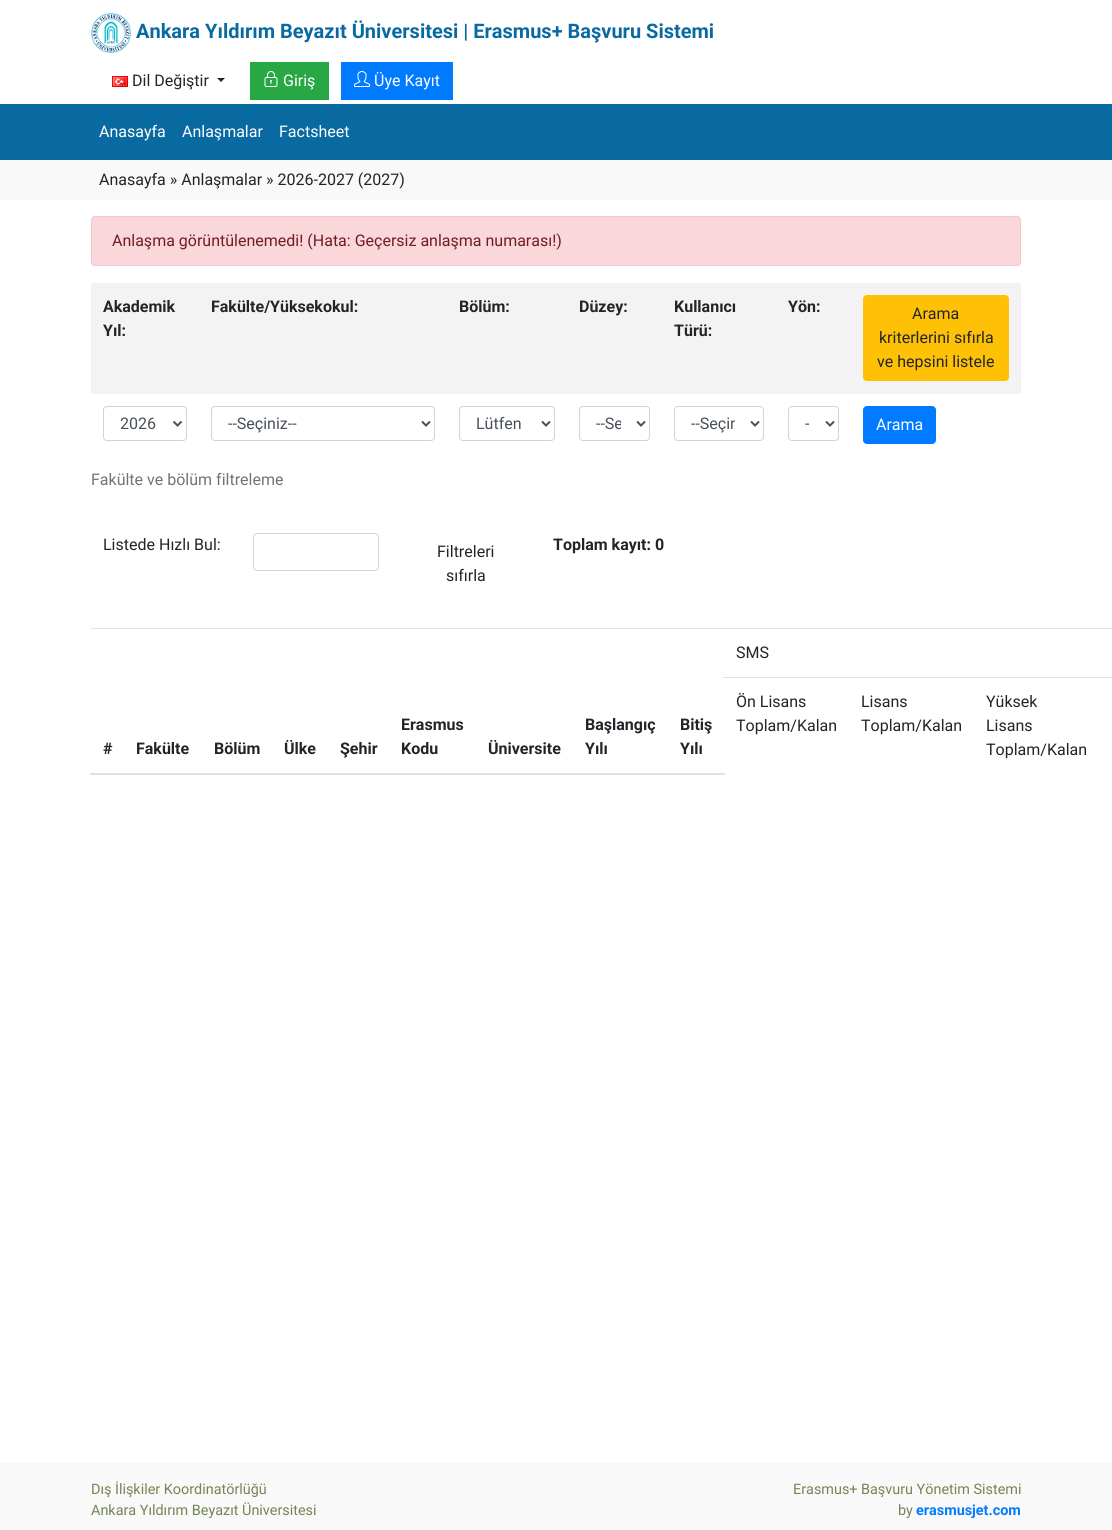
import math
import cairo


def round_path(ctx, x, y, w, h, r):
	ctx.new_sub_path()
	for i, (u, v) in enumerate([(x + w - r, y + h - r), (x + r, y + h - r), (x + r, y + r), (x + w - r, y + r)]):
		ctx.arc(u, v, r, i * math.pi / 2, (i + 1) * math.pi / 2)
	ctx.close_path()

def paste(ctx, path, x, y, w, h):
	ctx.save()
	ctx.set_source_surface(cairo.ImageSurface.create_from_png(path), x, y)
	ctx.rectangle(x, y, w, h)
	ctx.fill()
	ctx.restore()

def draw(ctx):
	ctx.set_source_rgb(1, 1, 1)
	ctx.paint()
	paste(ctx, 'media/1.png', 91, 13, 40, 40)
	ctx.select_font_face('Roboto', cairo.FONT_SLANT_NORMAL, cairo.FONT_WEIGHT_BOLD)
	ctx.set_font_size(20)
	ctx.set_source_rgb(0.039, 0.416, 0.631)
	ctx.move_to(136, 38)
	ctx.show_text('Ankara Yıldırım Beyazıt Üniversitesi | Erasmus+ Başvuru Sistemi')
	paste(ctx, 'media/2.png', 112, 76, 16, 11)
	ctx.select_font_face('Roboto')
	ctx.set_font_size(16)
	ctx.set_source_rgb(0.129, 0.145, 0.161)
	ctx.move_to(132, 86)
	ctx.show_text('Dil Değiştir')
	ctx.new_path()
	ctx.move_to(217, 78)
	ctx.line_to(225, 78)
	ctx.line_to(221, 82)
	ctx.close_path()
	ctx.fill()
	ctx.set_source_rgb(0.157, 0.655, 0.271)
	ctx.rectangle(250, 62, 79, 38)
	ctx.fill()
	paste(ctx, 'media/3.png', 264, 71, 14, 16)
	ctx.set_source_rgb(1, 1, 1)
	ctx.move_to(283, 86)
	ctx.show_text('Giriş')
	ctx.set_source_rgb(0, 0.482, 1)
	ctx.rectangle(341, 62, 112, 38)
	ctx.fill()
	paste(ctx, 'media/4.png', 354, 71, 16, 16)
	ctx.set_source_rgb(1, 1, 1)
	ctx.move_to(374, 86)
	ctx.show_text('Üye Kayıt')
	ctx.set_source_rgb(0.039, 0.416, 0.631)
	ctx.rectangle(0, 104, 1112, 56)
	ctx.fill()
	ctx.set_source_rgb(1, 1, 1)
	for x, y, s in [
		(99, 137, 'Anasayfa'),
		(182, 137, 'Anlaşmalar'),
		(279, 137, 'Factsheet'),
	]:
		ctx.move_to(x, y)
		ctx.show_text(s)
	ctx.set_source_rgb(0.973, 0.976, 0.98)
	ctx.rectangle(0, 160, 1112, 40)
	ctx.fill()
	ctx.set_source_rgb(0.129, 0.145, 0.161)
	ctx.move_to(99, 185)
	ctx.show_text('Anasayfa » Anlaşmalar » 2026-2027 (2027)')
	ctx.set_source_rgb(0.973, 0.843, 0.855)
	round_path(ctx, 91.5, 216.5, 929, 49, 3.5)
	ctx.fill_preserve()
	ctx.set_source_rgb(0.961, 0.776, 0.796)
	ctx.set_line_width(1)
	ctx.stroke()
	ctx.set_source_rgb(0.447, 0.11, 0.141)
	ctx.move_to(112, 246)
	ctx.show_text('Anlaşma görüntülenemedi! (Hata: Geçersiz anlaşma numarası!)')
	ctx.set_source_rgb(0.953, 0.953, 0.953)
	ctx.rectangle(91, 283, 930, 111)
	ctx.fill()
	ctx.select_font_face('Roboto', cairo.FONT_SLANT_NORMAL, cairo.FONT_WEIGHT_BOLD)
	ctx.set_source_rgb(0.129, 0.145, 0.161)
	for x, y, s in [
		(103, 312, 'Akademik'),
		(103, 336, 'Yıl:'),
		(211, 312, 'Fakülte/Yüksekokul:'),
		(459, 312, 'Bölüm:'),
		(579, 312, 'Düzey:'),
		(674, 312, 'Kullanıcı'),
		(674, 336, 'Türü:'),
		(788, 312, 'Yön:'),
	]:
		ctx.move_to(x, y)
		ctx.show_text(s)
	ctx.set_source_rgb(1, 0.757, 0.027)
	round_path(ctx, 863.5, 295.5, 145, 85, 3.5)
	ctx.fill_preserve()
	ctx.stroke()
	ctx.select_font_face('Roboto')
	ctx.set_source_rgb(0.129, 0.145, 0.161)
	for x, y, s in [
		(912, 319, 'Arama'),
		(879, 343, 'kriterlerini sıfırla'),
		(877, 367, 've hepsini listele'),
	]:
		ctx.move_to(x, y)
		ctx.show_text(s)
	round_path(ctx, 103.5, 406.5, 83, 34, 3.5)
	ctx.set_source_rgb(0.808, 0.831, 0.855)
	ctx.stroke()
	ctx.new_path()
	ctx.move_to(173.5, 421.5)
	ctx.line_to(177.5, 425.5)
	ctx.line_to(181.5, 421.5)
	ctx.set_source_rgb(0.286, 0.314, 0.341)
	ctx.set_line_width(2)
	ctx.stroke()
	ctx.move_to(120, 429)
	ctx.show_text('2026')
	round_path(ctx, 211.5, 406.5, 223, 34, 3.5)
	ctx.set_source_rgb(0.808, 0.831, 0.855)
	ctx.set_line_width(1)
	ctx.stroke()
	ctx.new_path()
	ctx.move_to(422, 421.5)
	ctx.line_to(426, 425.5)
	ctx.line_to(430, 421.5)
	ctx.set_source_rgb(0.286, 0.314, 0.341)
	ctx.set_line_width(2)
	ctx.stroke()
	ctx.move_to(228, 429)
	ctx.show_text('--Seçiniz--')
	round_path(ctx, 459.5, 406.5, 95, 34, 3.5)
	ctx.set_source_rgb(0.808, 0.831, 0.855)
	ctx.set_line_width(1)
	ctx.stroke()
	ctx.new_path()
	ctx.move_to(542, 421.5)
	ctx.line_to(546, 425.5)
	ctx.line_to(550, 421.5)
	ctx.set_source_rgb(0.286, 0.314, 0.341)
	ctx.set_line_width(2)
	ctx.stroke()
	ctx.move_to(476, 429)
	ctx.show_text('Lütfen')
	round_path(ctx, 579.5, 406.5, 70, 34, 3.5)
	ctx.set_source_rgb(0.808, 0.831, 0.855)
	ctx.set_line_width(1)
	ctx.stroke()
	ctx.new_path()
	ctx.move_to(637, 421.5)
	ctx.line_to(641, 425.5)
	ctx.line_to(645, 421.5)
	ctx.set_source_rgb(0.286, 0.314, 0.341)
	ctx.set_line_width(2)
	ctx.stroke()
	ctx.save()
	ctx.rectangle(596, 413, 25, 21)
	ctx.clip()
	ctx.move_to(596, 429)
	ctx.show_text('--Se')
	ctx.restore()
	round_path(ctx, 674.5, 406.5, 89, 34, 3.5)
	ctx.set_source_rgb(0.808, 0.831, 0.855)
	ctx.set_line_width(1)
	ctx.stroke()
	ctx.new_path()
	ctx.move_to(751, 421.5)
	ctx.line_to(755, 425.5)
	ctx.line_to(759, 421.5)
	ctx.set_source_rgb(0.286, 0.314, 0.341)
	ctx.set_line_width(2)
	ctx.stroke()
	ctx.save()
	ctx.rectangle(691, 413, 44, 21)
	ctx.clip()
	ctx.move_to(691, 429)
	ctx.show_text('--Seçin')
	ctx.restore()
	round_path(ctx, 788.5, 406.5, 50, 34, 3.5)
	ctx.set_source_rgb(0.808, 0.831, 0.855)
	ctx.set_line_width(1)
	ctx.stroke()
	ctx.new_path()
	ctx.move_to(826, 421.5)
	ctx.line_to(830, 425.5)
	ctx.line_to(834, 421.5)
	ctx.set_source_rgb(0.286, 0.314, 0.341)
	ctx.set_line_width(2)
	ctx.stroke()
	ctx.move_to(805, 429)
	ctx.show_text('-')
	ctx.set_source_rgb(0, 0.482, 1)
	round_path(ctx, 863.5, 406.5, 72, 37, 3.5)
	ctx.fill_preserve()
	ctx.set_line_width(1)
	ctx.stroke()
	ctx.set_source_rgb(1, 1, 1)
	ctx.move_to(876, 430)
	ctx.show_text('Arama')
	ctx.set_source_rgb(0.424, 0.459, 0.49)
	ctx.move_to(91, 485)
	ctx.show_text('Fakülte ve bölüm filtreleme')
	ctx.set_source_rgb(0.129, 0.145, 0.161)
	ctx.move_to(103, 550)
	ctx.show_text('Listede Hızlı Bul:')
	round_path(ctx, 253.5, 533.5, 125, 37, 3.5)
	ctx.set_source_rgb(0.808, 0.831, 0.855)
	ctx.stroke()
	ctx.set_source_rgb(0.129, 0.145, 0.161)
	ctx.move_to(437, 557)
	ctx.show_text('Filtreleri')
	ctx.move_to(446, 581)
	ctx.show_text('sıfırla')
	ctx.select_font_face('Roboto', cairo.FONT_SLANT_NORMAL, cairo.FONT_WEIGHT_BOLD)
	ctx.move_to(553, 550)
	ctx.show_text('Toplam kayıt: 0')
	ctx.set_source_rgb(0.871, 0.886, 0.902)
	ctx.rectangle(91, 628, 1021, 1)
	ctx.fill()
	ctx.select_font_face('Roboto')
	ctx.set_source_rgb(0.129, 0.145, 0.161)
	ctx.move_to(736, 658)
	ctx.show_text('SMS')
	ctx.select_font_face('Roboto', cairo.FONT_SLANT_NORMAL, cairo.FONT_WEIGHT_BOLD)
	for x, y, s in [
		(103, 754, '#'),
		(136, 754, 'Fakülte'),
		(214, 754, 'Bölüm'),
		(284, 754, 'Ülke'),
		(340, 754, 'Şehir'),
		(401, 730, 'Erasmus'),
		(401, 754, 'Kodu'),
		(488, 754, 'Üniversite'),
		(585, 730, 'Başlangıç'),
		(585, 754, 'Yılı'),
	]:
		ctx.move_to(x, y)
		ctx.show_text(s)
	ctx.set_source_rgb(0.871, 0.886, 0.902)
	ctx.rectangle(90, 773, 635, 2)
	ctx.fill()
	ctx.set_source_rgb(0.129, 0.145, 0.161)
	ctx.move_to(680, 730)
	ctx.show_text('Bitiş')
	ctx.move_to(680, 754)
	ctx.show_text('Yılı')
	ctx.set_source_rgb(0.871, 0.886, 0.902)
	ctx.rectangle(723, 677, 389, 1)
	ctx.fill()
	ctx.select_font_face('Roboto')
	ctx.set_source_rgb(0.129, 0.145, 0.161)
	for x, y, s in [
		(736, 707, 'Ön Lisans'),
		(736, 731, 'Toplam/Kalan'),
		(861, 707, 'Lisans'),
		(861, 731, 'Toplam/Kalan'),
		(986, 707, 'Yüksek'),
		(986, 731, 'Lisans'),
		(986, 755, 'Toplam/Kalan'),
	]:
		ctx.move_to(x, y)
		ctx.show_text(s)
	ctx.set_source_rgb(0.973, 0.976, 0.98)
	ctx.rectangle(0, 1463, 1112, 67)
	ctx.fill()
	ctx.set_font_size(14.4)
	ctx.set_source_rgb(0.455, 0.522, 0.325)
	for x, y, s in [
		(91, 1494, 'Dış İlişkiler Koordinatörlüğü'),
		(91, 1515, 'Ankara Yıldırım Beyazıt Üniversitesi'),
		(793, 1494, 'Erasmus+ Başvuru Yönetim Sistemi'),
		(898, 1515, 'by'),
	]:
		ctx.move_to(x, y)
		ctx.show_text(s)
	ctx.select_font_face('Roboto', cairo.FONT_SLANT_NORMAL, cairo.FONT_WEIGHT_BOLD)
	ctx.set_source_rgb(0, 0.482, 1)
	ctx.move_to(916, 1515)
	ctx.show_text('erasmusjet.com')


surface = cairo.ImageSurface(cairo.FORMAT_RGB24, 1112, 1530)
ctx = cairo.Context(surface)
options = cairo.FontOptions()
options.set_hint_metrics(cairo.HINT_METRICS_OFF)
options.set_hint_style(cairo.HINT_STYLE_NONE)
ctx.set_font_options(options)
ctx.set_miter_limit(4)
draw(ctx)
surface.write_to_png('image.png')
